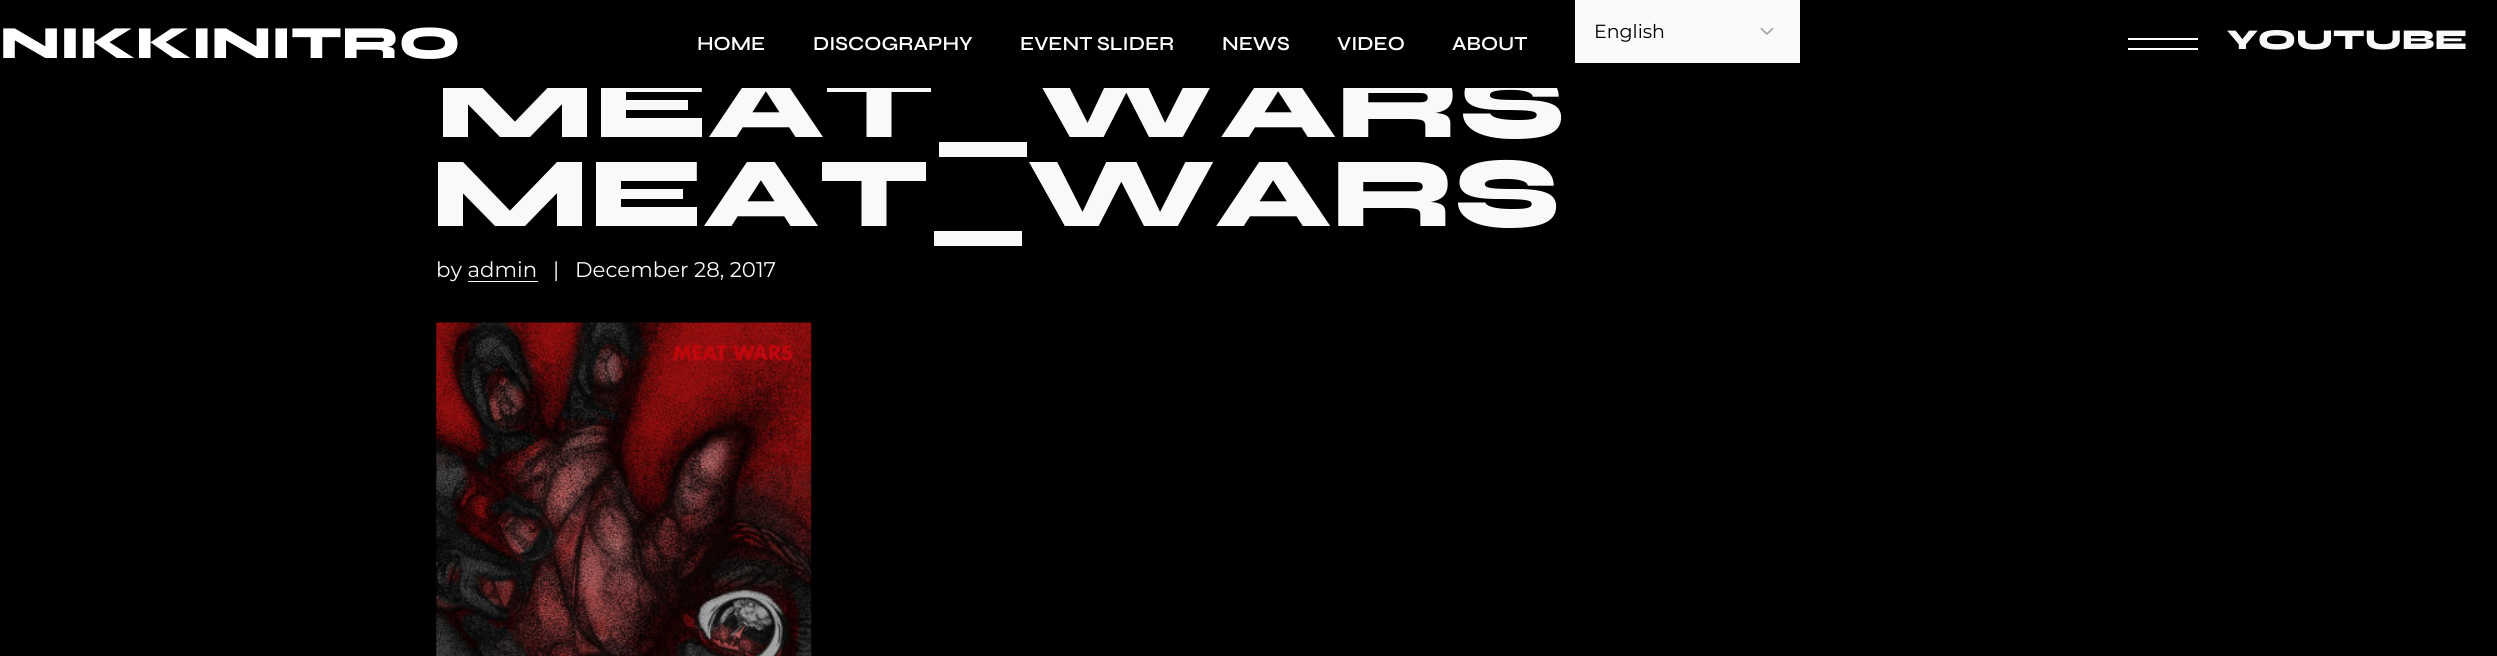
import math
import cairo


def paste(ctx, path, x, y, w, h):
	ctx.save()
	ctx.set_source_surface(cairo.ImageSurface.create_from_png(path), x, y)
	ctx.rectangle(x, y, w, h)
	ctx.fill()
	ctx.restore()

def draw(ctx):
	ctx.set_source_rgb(0, 0, 0)
	ctx.paint()
	ctx.select_font_face('Syne ExtraBold')
	ctx.set_font_size(100)
	ctx.set_source_rgb(0.976, 0.976, 0.976)
	ctx.move_to(436, 137)
	ctx.show_text('MEAT_WARS')
	ctx.set_source_rgb(0, 0, 0)
	ctx.rectangle(443, 70, 1114, 18)
	ctx.fill()
	ctx.set_font_size(46.25)
	ctx.set_source_rgb(1, 1, 1)
	ctx.move_to(0, 58)
	ctx.show_text('NIKKINITRO')
	ctx.set_source_rgb(0.98, 0.98, 0.98)
	ctx.rectangle(1575, 0, 225, 63)
	ctx.fill()
	paste(ctx, 'media/1.png', 1760, 28, 14, 7)
	ctx.select_font_face('Montserrat')
	ctx.set_font_size(19)
	ctx.set_source_rgb(0, 0, 0)
	ctx.move_to(1594, 38)
	ctx.show_text('English')
	ctx.select_font_face('Syne SemiBold')
	ctx.set_font_size(20)
	ctx.set_source_rgb(1, 1, 1)
	for x, y, s in [
		(697, 50, 'HOME'),
		(813, 50, 'DISCOGRAPHY'),
		(1020, 50, 'EVENT SLIDER'),
		(1222, 50, 'NEWS'),
		(1337, 50, 'VIDEO'),
		(1452, 50, 'ABOUT'),
	]:
		ctx.move_to(x, y)
		ctx.show_text(s)
	ctx.rectangle(2128, 38, 70, 2)
	ctx.fill()
	ctx.rectangle(2128, 48, 70, 2)
	ctx.fill()
	ctx.select_font_face('Syne ExtraBold')
	ctx.set_font_size(28.75)
	ctx.set_source_rgb(0.976, 0.976, 0.976)
	ctx.move_to(2227, 49)
	ctx.show_text('YOUTUBE')
	ctx.set_font_size(100)
	ctx.move_to(431, 226)
	ctx.show_text('MEAT_WARS')
	ctx.select_font_face('Montserrat')
	ctx.set_font_size(21.25)
	ctx.move_to(436, 277)
	ctx.show_text('by admin')
	ctx.move_to(553, 277)
	ctx.show_text('|')
	ctx.rectangle(468, 281, 70, 1)
	ctx.fill()
	ctx.move_to(575, 277)
	ctx.show_text('December 28, 2017')
	paste(ctx, 'media/2.png', 436, 322, 376, 334)


surface = cairo.ImageSurface(cairo.FORMAT_RGB24, 2497, 656)
ctx = cairo.Context(surface)
options = cairo.FontOptions()
options.set_hint_metrics(cairo.HINT_METRICS_OFF)
options.set_hint_style(cairo.HINT_STYLE_NONE)
ctx.set_font_options(options)
ctx.set_miter_limit(4)
draw(ctx)
surface.write_to_png('image.png')
